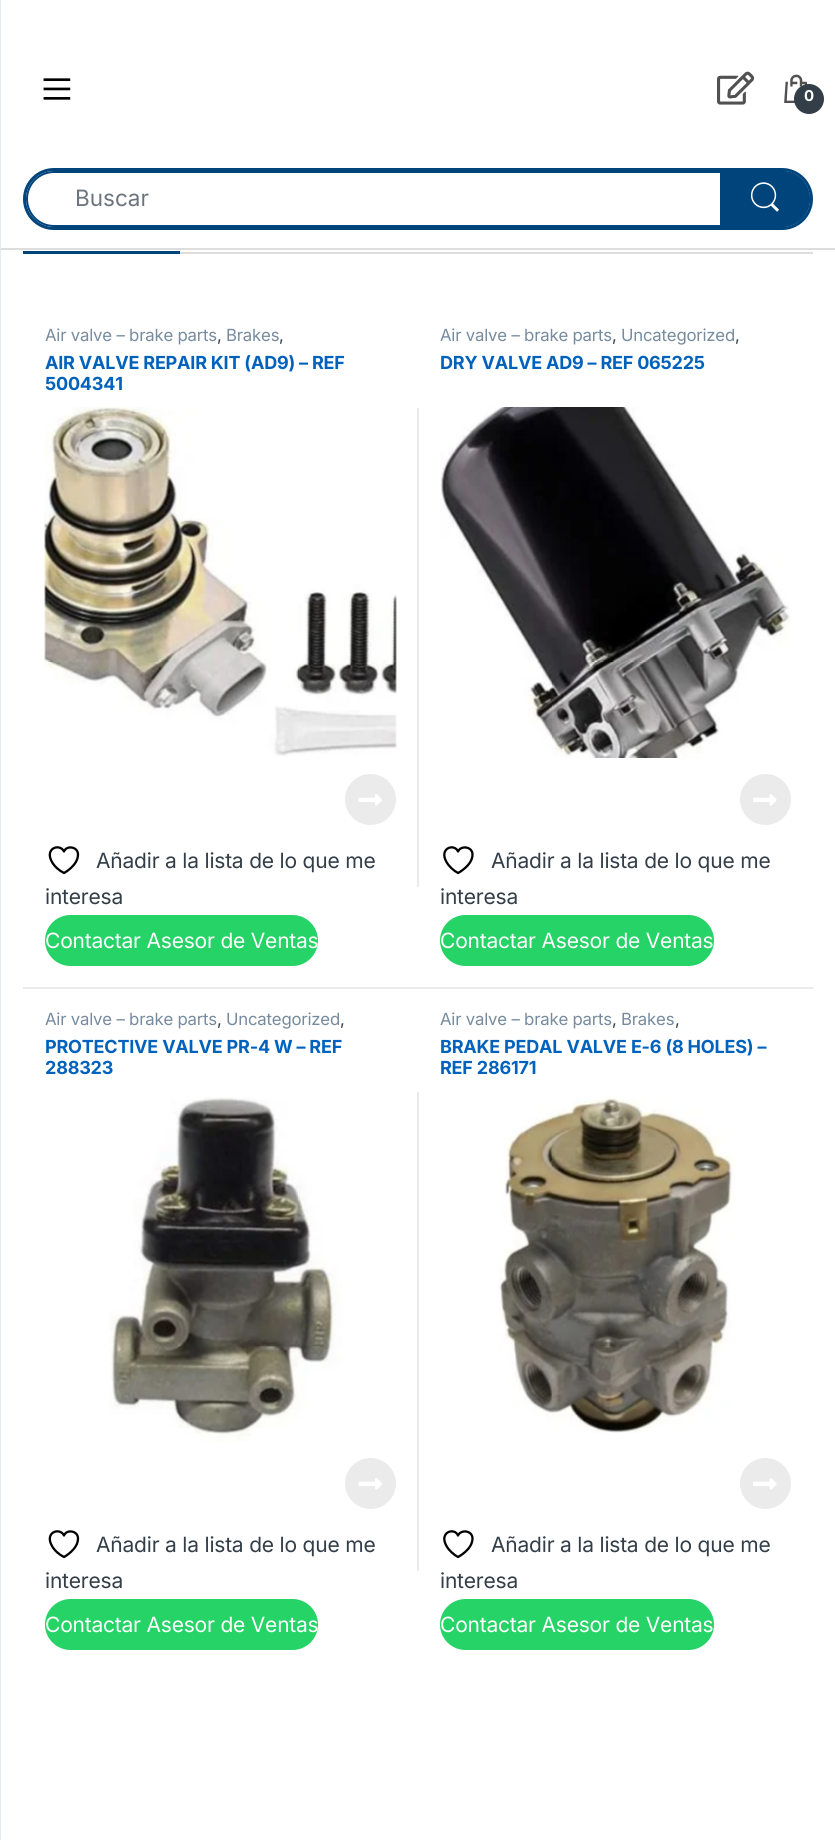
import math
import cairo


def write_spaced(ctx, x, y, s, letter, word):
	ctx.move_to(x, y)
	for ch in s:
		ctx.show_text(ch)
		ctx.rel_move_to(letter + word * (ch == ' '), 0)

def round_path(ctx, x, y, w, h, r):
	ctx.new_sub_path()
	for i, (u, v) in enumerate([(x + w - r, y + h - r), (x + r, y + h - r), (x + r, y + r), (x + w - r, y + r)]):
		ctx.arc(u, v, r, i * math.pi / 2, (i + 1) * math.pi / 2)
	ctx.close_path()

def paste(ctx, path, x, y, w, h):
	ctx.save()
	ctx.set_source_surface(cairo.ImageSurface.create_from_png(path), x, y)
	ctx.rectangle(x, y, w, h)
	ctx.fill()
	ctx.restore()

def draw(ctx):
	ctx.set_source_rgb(1, 1, 1)
	ctx.paint()
	ctx.set_source_rgb(0.867, 0.867, 0.867)
	ctx.rectangle(0, 248, 835, 2)
	ctx.fill()
	ctx.set_source_rgb(0.89, 0.914, 0.937)
	ctx.rectangle(0, 0, 1, 1840)
	ctx.fill()
	paste(ctx, 'media/1.png', 43, 78, 28, 22)
	paste(ctx, 'media/2.png', 717, 71, 38, 34)
	paste(ctx, 'media/3.png', 784, 74, 24, 29)
	ctx.set_source_rgb(0.2, 0.243, 0.282)
	ctx.arc(809, 99, 15, 0, 2 * math.pi)
	ctx.fill()
	ctx.select_font_face('Inter', cairo.FONT_SLANT_NORMAL, cairo.FONT_WEIGHT_BOLD)
	ctx.set_font_size(15)
	ctx.set_source_rgb(1, 1, 1)
	write_spaced(ctx, 804, 101, '0', -0.2, 0)
	round_path(ctx, 24.5, 169.5, 787, 59, 29.5)
	ctx.set_source_rgb(0, 0.267, 0.486)
	ctx.set_line_width(3)
	ctx.stroke()
	round_path(ctx, 27, 172, 782, 54, 27)
	ctx.set_line_width(2)
	ctx.stroke()
	ctx.select_font_face('Inter')
	ctx.set_font_size(22.5)
	ctx.set_source_rgb(0.424, 0.459, 0.49)
	ctx.move_to(75, 206)
	ctx.show_text('Buscar')
	ctx.set_source_rgb(0, 0.267, 0.486)
	ctx.new_path()
	ctx.move_to(720, 171)
	ctx.line_to(782, 171)
	ctx.curve_to(797.5, 171, 810, 183.5, 810, 199)
	ctx.curve_to(810, 214.5, 797.5, 227, 782, 227)
	ctx.line_to(720, 227)
	ctx.close_path()
	ctx.fill()
	paste(ctx, 'media/4.png', 750, 182, 29, 30)
	ctx.set_source_rgb(0.867, 0.867, 0.867)
	ctx.rectangle(180, 252, 633, 2)
	ctx.fill()
	ctx.set_source_rgb(0, 0.267, 0.486)
	ctx.rectangle(23, 251, 157, 3)
	ctx.fill()
	ctx.set_source_rgb(0.918, 0.918, 0.918)
	ctx.rectangle(23, 987, 790, 2)
	ctx.fill()
	ctx.set_font_size(16.75)
	ctx.set_source_rgb(0.463, 0.545, 0.62)
	write_spaced(ctx, 45, 341, 'Air valve – brake parts', -0.2, 0)
	ctx.set_source_rgb(0.2, 0.243, 0.282)
	write_spaced(ctx, 217, 341, ',', -0.2, 0)
	ctx.set_source_rgb(0.463, 0.545, 0.62)
	write_spaced(ctx, 226, 341, 'Brakes', -0.2, 0)
	ctx.set_source_rgb(0.2, 0.243, 0.282)
	write_spaced(ctx, 279, 341, ',', -0.2, 0)
	ctx.select_font_face('Inter', cairo.FONT_SLANT_NORMAL, cairo.FONT_WEIGHT_BOLD)
	ctx.set_font_size(18)
	ctx.set_source_rgb(0, 0.384, 0.741)
	write_spaced(ctx, 45, 369, 'AIR VALVE REPAIR KIT (AD9) – REF', -0.2, 0)
	write_spaced(ctx, 45, 390, '5004341', -0.2, 0)
	paste(ctx, 'media/5.png', 44, 407, 353, 349)
	ctx.set_source_rgb(0.918, 0.918, 0.918)
	ctx.arc(370.5, 799.5, 25.5, 0, 2 * math.pi)
	ctx.fill()
	paste(ctx, 'media/6.png', 358, 794, 24, 12)
	ctx.new_path()
	ctx.move_to(78, 854.5)
	ctx.curve_to(78, 846.5, 66.5, 845, 64, 851.5)
	ctx.curve_to(60, 843, 44, 848, 52, 862)
	ctx.curve_to(54.5, 866.5, 59, 870.5, 64, 873)
	ctx.curve_to(64, 873, 78, 865.5, 78, 854.5)
	ctx.close_path()
	ctx.set_source_rgb(0, 0, 0)
	ctx.set_line_width(2.3)
	ctx.set_line_cap(cairo.LINE_CAP_ROUND)
	ctx.set_line_join(cairo.LINE_JOIN_ROUND)
	ctx.stroke()
	ctx.select_font_face('Inter')
	ctx.set_font_size(21)
	ctx.set_source_rgb(0.2, 0.243, 0.282)
	write_spaced(ctx, 96, 868, 'Añadir a la lista de lo que me', -0.2, 0)
	write_spaced(ctx, 45, 904, 'interesa', -0.2, 0)
	ctx.set_source_rgb(0.145, 0.827, 0.4)
	round_path(ctx, 45, 915, 273, 51, 25.5)
	ctx.fill()
	ctx.set_source_rgb(1, 1, 1)
	write_spaced(ctx, 45, 948, 'Contactar Asesor de Ventas', -0.2, 0)
	ctx.set_source_rgb(0.918, 0.918, 0.918)
	ctx.rectangle(417, 408, 2, 479)
	ctx.fill()
	ctx.set_font_size(16.75)
	ctx.set_source_rgb(0.463, 0.545, 0.62)
	write_spaced(ctx, 440, 341, 'Air valve – brake parts', -0.2, 0)
	ctx.set_source_rgb(0.2, 0.243, 0.282)
	write_spaced(ctx, 612, 341, ',', -0.2, 0)
	ctx.set_source_rgb(0.463, 0.545, 0.62)
	write_spaced(ctx, 621, 341, 'Uncategorized', -0.2, 0)
	ctx.set_source_rgb(0.2, 0.243, 0.282)
	write_spaced(ctx, 735, 341, ',', -0.2, 0)
	ctx.select_font_face('Inter', cairo.FONT_SLANT_NORMAL, cairo.FONT_WEIGHT_BOLD)
	ctx.set_font_size(18)
	ctx.set_source_rgb(0, 0.384, 0.741)
	write_spaced(ctx, 440, 369, 'DRY VALVE AD9 – REF 065225', -0.2, 0)
	paste(ctx, 'media/7.png', 440, 407, 350, 351)
	ctx.set_source_rgb(0.918, 0.918, 0.918)
	ctx.arc(765.5, 799.5, 25.5, 0, 2 * math.pi)
	ctx.fill()
	paste(ctx, 'media/8.png', 753, 794, 24, 12)
	ctx.new_path()
	ctx.move_to(472.5, 854.5)
	ctx.curve_to(472.5, 846.5, 461, 845, 458, 851.5)
	ctx.curve_to(454.5, 843, 438.5, 848, 446.5, 862)
	ctx.curve_to(449, 866.5, 453.5, 870.5, 458, 873)
	ctx.curve_to(458, 873, 472.5, 865.5, 472.5, 854.5)
	ctx.close_path()
	ctx.set_source_rgb(0, 0, 0)
	ctx.stroke()
	ctx.select_font_face('Inter')
	ctx.set_font_size(21)
	ctx.set_source_rgb(0.2, 0.243, 0.282)
	write_spaced(ctx, 491, 868, 'Añadir a la lista de lo que me', -0.2, 0)
	write_spaced(ctx, 440, 904, 'interesa', -0.2, 0)
	ctx.set_source_rgb(0.145, 0.827, 0.4)
	round_path(ctx, 440, 915, 274, 51, 25.5)
	ctx.fill()
	ctx.set_source_rgb(1, 1, 1)
	write_spaced(ctx, 440, 948, 'Contactar Asesor de Ventas', -0.2, 0)
	ctx.set_font_size(16.75)
	ctx.set_source_rgb(0.463, 0.545, 0.62)
	write_spaced(ctx, 45, 1025, 'Air valve – brake parts', -0.2, 0)
	ctx.set_source_rgb(0.2, 0.243, 0.282)
	write_spaced(ctx, 217, 1025, ',', -0.2, 0)
	ctx.set_source_rgb(0.463, 0.545, 0.62)
	write_spaced(ctx, 226, 1025, 'Uncategorized', -0.2, 0)
	ctx.set_source_rgb(0.2, 0.243, 0.282)
	write_spaced(ctx, 340, 1025, ',', -0.2, 0)
	ctx.select_font_face('Inter', cairo.FONT_SLANT_NORMAL, cairo.FONT_WEIGHT_BOLD)
	ctx.set_font_size(18)
	ctx.set_source_rgb(0, 0.384, 0.741)
	write_spaced(ctx, 45, 1053, 'PROTECTIVE VALVE PR-4 W – REF', -0.2, 0)
	write_spaced(ctx, 45, 1074, '288323', -0.2, 0)
	paste(ctx, 'media/9.png', 109, 1097, 234, 345)
	ctx.set_source_rgb(0.918, 0.918, 0.918)
	ctx.arc(370.5, 1483.5, 25.5, 0, 2 * math.pi)
	ctx.fill()
	paste(ctx, 'media/6.png', 358, 1478, 24, 12)
	ctx.new_path()
	ctx.move_to(78, 1538.5)
	ctx.curve_to(78, 1530.5, 66.5, 1529, 64, 1535.5)
	ctx.curve_to(60, 1527, 44, 1532, 52, 1546)
	ctx.curve_to(54.5, 1550.5, 59, 1554.5, 64, 1557)
	ctx.curve_to(64, 1557, 78, 1549.5, 78, 1538.5)
	ctx.close_path()
	ctx.set_source_rgb(0, 0, 0)
	ctx.stroke()
	ctx.select_font_face('Inter')
	ctx.set_font_size(21)
	ctx.set_source_rgb(0.2, 0.243, 0.282)
	write_spaced(ctx, 96, 1552, 'Añadir a la lista de lo que me', -0.2, 0)
	write_spaced(ctx, 45, 1588, 'interesa', -0.2, 0)
	ctx.set_source_rgb(0.145, 0.827, 0.4)
	round_path(ctx, 45, 1599, 273, 51, 25.5)
	ctx.fill()
	ctx.set_source_rgb(1, 1, 1)
	write_spaced(ctx, 45, 1632, 'Contactar Asesor de Ventas', -0.2, 0)
	ctx.set_source_rgb(0.918, 0.918, 0.918)
	ctx.rectangle(417, 1092, 2, 479)
	ctx.fill()
	ctx.set_font_size(16.75)
	ctx.set_source_rgb(0.463, 0.545, 0.62)
	write_spaced(ctx, 440, 1025, 'Air valve – brake parts', -0.2, 0)
	ctx.set_source_rgb(0.2, 0.243, 0.282)
	write_spaced(ctx, 612, 1025, ',', -0.2, 0)
	ctx.set_source_rgb(0.463, 0.545, 0.62)
	write_spaced(ctx, 621, 1025, 'Brakes', -0.2, 0)
	ctx.set_source_rgb(0.2, 0.243, 0.282)
	write_spaced(ctx, 675, 1025, ',', -0.2, 0)
	ctx.select_font_face('Inter', cairo.FONT_SLANT_NORMAL, cairo.FONT_WEIGHT_BOLD)
	ctx.set_font_size(18)
	ctx.set_source_rgb(0, 0.384, 0.741)
	write_spaced(ctx, 440, 1053, 'BRAKE PEDAL VALVE E-6 (8 HOLES) –', -0.2, 0)
	write_spaced(ctx, 440, 1074, 'REF 286171', -0.2, 0)
	paste(ctx, 'media/10.png', 499, 1096, 236, 337)
	ctx.set_source_rgb(0.918, 0.918, 0.918)
	ctx.arc(765.5, 1483.5, 25.5, 0, 2 * math.pi)
	ctx.fill()
	paste(ctx, 'media/8.png', 753, 1478, 24, 12)
	ctx.new_path()
	ctx.move_to(472.5, 1538.5)
	ctx.curve_to(472.5, 1530.5, 461, 1529, 458, 1535.5)
	ctx.curve_to(454.5, 1527, 438.5, 1532, 446.5, 1546)
	ctx.curve_to(449, 1550.5, 453.5, 1554.5, 458, 1557)
	ctx.curve_to(458, 1557, 472.5, 1549.5, 472.5, 1538.5)
	ctx.close_path()
	ctx.set_source_rgb(0, 0, 0)
	ctx.stroke()
	ctx.select_font_face('Inter')
	ctx.set_font_size(21)
	ctx.set_source_rgb(0.2, 0.243, 0.282)
	write_spaced(ctx, 491, 1552, 'Añadir a la lista de lo que me', -0.2, 0)
	write_spaced(ctx, 440, 1588, 'interesa', -0.2, 0)
	ctx.set_source_rgb(0.145, 0.827, 0.4)
	round_path(ctx, 440, 1599, 274, 51, 25.5)
	ctx.fill()
	ctx.set_source_rgb(1, 1, 1)
	write_spaced(ctx, 440, 1632, 'Contactar Asesor de Ventas', -0.2, 0)


surface = cairo.ImageSurface(cairo.FORMAT_RGB24, 835, 1840)
ctx = cairo.Context(surface)
options = cairo.FontOptions()
options.set_hint_metrics(cairo.HINT_METRICS_OFF)
options.set_hint_style(cairo.HINT_STYLE_NONE)
ctx.set_font_options(options)
ctx.set_miter_limit(4)
draw(ctx)
surface.write_to_png('image.png')
